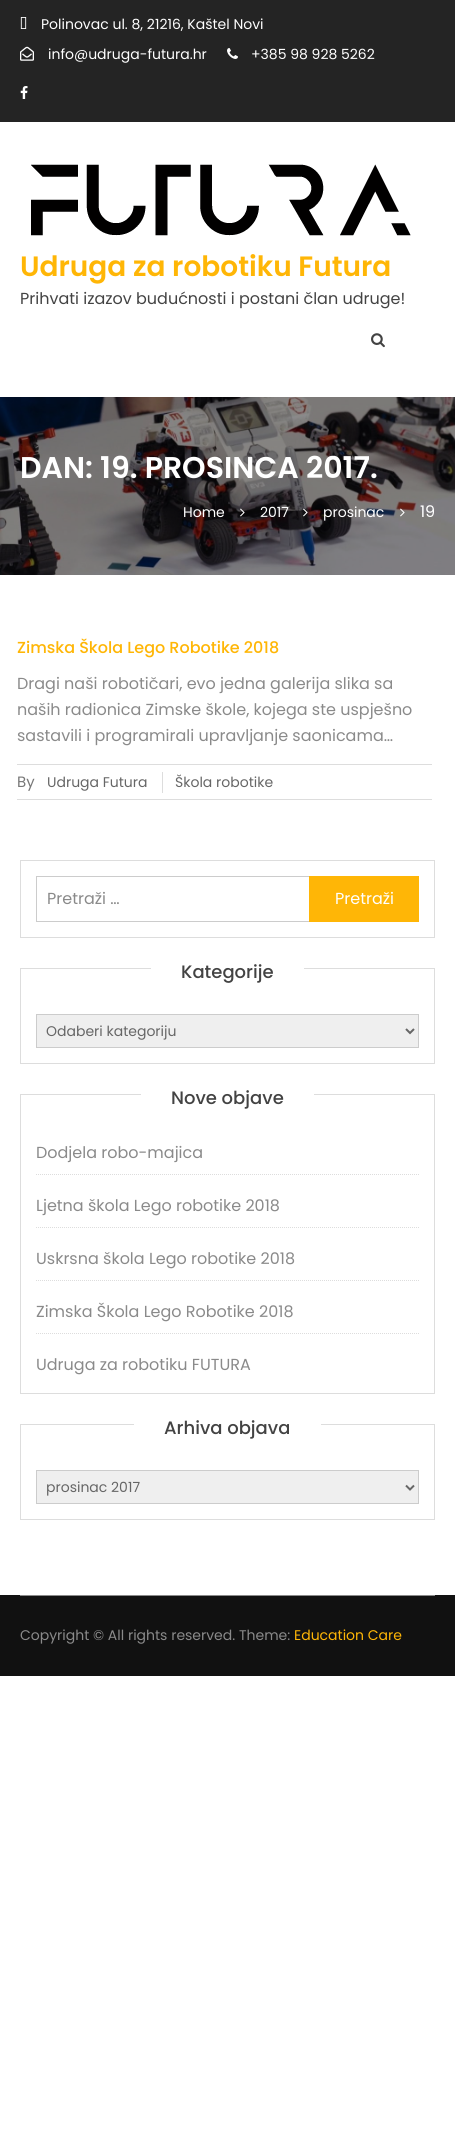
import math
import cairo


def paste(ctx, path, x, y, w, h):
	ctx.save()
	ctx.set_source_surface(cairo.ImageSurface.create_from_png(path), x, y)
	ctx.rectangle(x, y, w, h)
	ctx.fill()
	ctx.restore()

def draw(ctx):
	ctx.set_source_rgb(1, 1, 1)
	ctx.paint()
	ctx.set_source_rgb(0.141, 0.141, 0.141)
	ctx.rectangle(0, 0, 455, 122)
	ctx.fill()
	paste(ctx, 'media/1.png', 20, 17, 7, 12)
	ctx.select_font_face('Poppins')
	ctx.set_font_size(14)
	ctx.set_source_rgb(1, 1, 1)
	ctx.move_to(41, 29)
	ctx.show_text('Polinovac ul. 8, 21216, Kaštel Novi')
	paste(ctx, 'media/2.png', 20, 46, 14, 15)
	ctx.move_to(48, 59)
	ctx.show_text('info@udruga-futura.hr')
	paste(ctx, 'media/3.png', 227, 48, 11, 11)
	ctx.move_to(251, 59)
	ctx.show_text('+385 98 928 5262')
	paste(ctx, 'media/4.png', 20, 86, 8, 13)
	paste(ctx, 'media/5.png', 31, 164, 380, 72)
	ctx.select_font_face('Poppins SemiBold')
	ctx.set_font_size(28)
	ctx.set_source_rgb(1, 0.714, 0.024)
	ctx.move_to(20, 276)
	ctx.show_text('Udruga za robotiku Futura')
	ctx.select_font_face('Poppins')
	ctx.set_font_size(16)
	ctx.set_source_rgb(0.263, 0.263, 0.263)
	ctx.move_to(20, 304)
	ctx.show_text('Prihvati izazov budućnosti i postani član udruge!')
	paste(ctx, 'media/6.png', 371, 333, 14, 15)
	paste(ctx, 'media/7.png', 0, 397, 455, 178)
	ctx.select_font_face('Poppins SemiBold')
	ctx.set_font_size(30)
	ctx.set_source_rgb(1, 1, 1)
	ctx.move_to(20, 478)
	ctx.show_text('DAN: 19. PROSINCA 2017.')
	ctx.select_font_face('Poppins')
	ctx.set_font_size(14)
	ctx.move_to(183, 517)
	ctx.show_text('Home')
	paste(ctx, 'media/8.png', 240, 508, 5, 9)
	ctx.move_to(260, 517)
	ctx.show_text('2017')
	paste(ctx, 'media/9.png', 303, 508, 5, 9)
	ctx.move_to(323, 517)
	ctx.show_text('prosinac')
	paste(ctx, 'media/10.png', 400, 508, 5, 9)
	ctx.set_font_size(16)
	ctx.move_to(420, 517)
	ctx.show_text('19')
	ctx.select_font_face('Poppins Medium')
	ctx.set_source_rgb(1, 0.714, 0.024)
	ctx.move_to(17, 653)
	ctx.show_text('Zimska Škola Lego Robotike 2018')
	ctx.select_font_face('Poppins')
	ctx.set_source_rgb(0.541, 0.541, 0.541)
	for x, y, s in [
		(17, 689, 'Dragi naši robotičari, evo jedna galerija slika sa'),
		(17, 715, 'naših radionica Zimske škole, kojega ste uspješno'),
		(17, 741, 'sastavili i programirali upravljanje saonicama…'),
	]:
		ctx.move_to(x, y)
		ctx.show_text(s)
	ctx.set_source_rgb(0.867, 0.867, 0.867)
	ctx.rectangle(17, 764, 415, 1)
	ctx.fill()
	ctx.rectangle(17, 799, 415, 1)
	ctx.fill()
	ctx.set_font_size(15)
	ctx.set_source_rgb(0.467, 0.467, 0.467)
	ctx.move_to(17, 787)
	ctx.show_text('By')
	ctx.set_source_rgb(0.867, 0.867, 0.867)
	ctx.rectangle(162, 772, 1, 21)
	ctx.fill()
	ctx.set_font_size(14)
	ctx.set_source_rgb(0.4, 0.4, 0.4)
	ctx.move_to(47, 787)
	ctx.show_text('Udruga Futura')
	ctx.move_to(175, 787)
	ctx.show_text('Škola robotike')
	ctx.rectangle(20.5, 860.5, 414, 77)
	ctx.set_source_rgb(0.867, 0.867, 0.867)
	ctx.set_line_width(1)
	ctx.stroke()
	ctx.rectangle(36.5, 876.5, 382, 45)
	ctx.set_source_rgb(0.8, 0.8, 0.8)
	ctx.stroke()
	ctx.set_font_size(16)
	ctx.set_source_rgb(0.541, 0.541, 0.541)
	ctx.move_to(47, 904)
	ctx.show_text('Pretraži …')
	ctx.set_source_rgb(1, 0.714, 0.024)
	ctx.rectangle(309, 876, 110, 46)
	ctx.fill()
	ctx.set_source_rgb(1, 1, 1)
	ctx.move_to(335, 904)
	ctx.show_text('Pretraži')
	ctx.rectangle(20.5, 968.5, 414, 95)
	ctx.set_source_rgb(0.867, 0.867, 0.867)
	ctx.stroke()
	ctx.set_source_rgb(1, 1, 1)
	ctx.rectangle(151, 968, 153, 1)
	ctx.fill()
	ctx.select_font_face('Poppins Medium')
	ctx.set_font_size(18)
	ctx.set_source_rgb(0.263, 0.263, 0.263)
	ctx.move_to(181, 978)
	ctx.show_text('Kategorije')
	ctx.set_source_rgb(0.937, 0.937, 0.937)
	ctx.rectangle(36.5, 1014.5, 382, 33)
	ctx.fill_preserve()
	ctx.set_source_rgb(0.8, 0.8, 0.8)
	ctx.stroke()
	ctx.new_path()
	ctx.move_to(406, 1029)
	ctx.line_to(410, 1033)
	ctx.line_to(414, 1029)
	ctx.set_source_rgb(0.4, 0.4, 0.4)
	ctx.set_line_width(2)
	ctx.stroke()
	ctx.select_font_face('Poppins')
	ctx.set_font_size(14)
	ctx.move_to(46, 1036)
	ctx.show_text('Odaberi kategoriju')
	ctx.rectangle(20.5, 1094.5, 414, 299)
	ctx.set_source_rgb(0.867, 0.867, 0.867)
	ctx.set_line_width(1)
	ctx.stroke()
	ctx.set_source_rgb(1, 1, 1)
	ctx.rectangle(141, 1094, 173, 1)
	ctx.fill()
	ctx.select_font_face('Poppins Medium')
	ctx.set_font_size(18)
	ctx.set_source_rgb(0.263, 0.263, 0.263)
	ctx.move_to(171, 1104)
	ctx.show_text('Nove objave')
	ctx.new_path()
	ctx.move_to(36, 1174.5)
	ctx.line_to(419, 1174.5)
	ctx.set_source_rgb(0.867, 0.867, 0.867)
	ctx.set_dash([1, 1])
	ctx.stroke()
	ctx.select_font_face('Poppins')
	ctx.set_font_size(16)
	ctx.set_source_rgb(0.541, 0.541, 0.541)
	ctx.move_to(36, 1158)
	ctx.show_text('Dodjela robo-majica')
	ctx.new_path()
	ctx.move_to(36, 1227.5)
	ctx.line_to(419, 1227.5)
	ctx.set_source_rgb(0.867, 0.867, 0.867)
	ctx.stroke()
	ctx.set_source_rgb(0.541, 0.541, 0.541)
	ctx.move_to(36, 1211)
	ctx.show_text('Ljetna škola Lego robotike 2018')
	ctx.new_path()
	ctx.move_to(36, 1280.5)
	ctx.line_to(419, 1280.5)
	ctx.set_source_rgb(0.867, 0.867, 0.867)
	ctx.stroke()
	ctx.set_source_rgb(0.541, 0.541, 0.541)
	ctx.move_to(36, 1264)
	ctx.show_text('Uskrsna škola Lego robotike 2018')
	ctx.new_path()
	ctx.move_to(36, 1333.5)
	ctx.line_to(419, 1333.5)
	ctx.set_source_rgb(0.867, 0.867, 0.867)
	ctx.stroke()
	ctx.set_source_rgb(0.541, 0.541, 0.541)
	ctx.move_to(36, 1317)
	ctx.show_text('Zimska Škola Lego Robotike 2018')
	ctx.move_to(36, 1370)
	ctx.show_text('Udruga za robotiku FUTURA')
	ctx.rectangle(20.5, 1424.5, 414, 95)
	ctx.set_source_rgb(0.867, 0.867, 0.867)
	ctx.set_dash([])
	ctx.stroke()
	ctx.set_source_rgb(1, 1, 1)
	ctx.rectangle(134, 1424, 187, 1)
	ctx.fill()
	ctx.select_font_face('Poppins Medium')
	ctx.set_font_size(18)
	ctx.set_source_rgb(0.263, 0.263, 0.263)
	ctx.move_to(164, 1434)
	ctx.show_text('Arhiva objava')
	ctx.set_source_rgb(0.937, 0.937, 0.937)
	ctx.rectangle(36.5, 1470.5, 382, 33)
	ctx.fill_preserve()
	ctx.set_source_rgb(0.8, 0.8, 0.8)
	ctx.stroke()
	ctx.new_path()
	ctx.move_to(406, 1485.5)
	ctx.line_to(410, 1489.5)
	ctx.line_to(414, 1485.5)
	ctx.set_source_rgb(0.4, 0.4, 0.4)
	ctx.set_line_width(2)
	ctx.stroke()
	ctx.select_font_face('Poppins')
	ctx.set_font_size(14)
	ctx.move_to(46, 1492)
	ctx.show_text('prosinac 2017')
	ctx.set_source_rgb(0.067, 0.067, 0.067)
	ctx.rectangle(0, 1595, 455, 81)
	ctx.fill()
	ctx.set_source_rgb(0.541, 0.541, 0.541)
	ctx.rectangle(20, 1595, 415, 1)
	ctx.fill()
	ctx.move_to(20, 1640)
	ctx.show_text('Copyright © All rights reserved. Theme:')
	ctx.set_source_rgb(1, 0.714, 0.024)
	ctx.move_to(294, 1640)
	ctx.show_text('Education Care')


surface = cairo.ImageSurface(cairo.FORMAT_RGB24, 455, 2149)
ctx = cairo.Context(surface)
options = cairo.FontOptions()
options.set_hint_metrics(cairo.HINT_METRICS_OFF)
options.set_hint_style(cairo.HINT_STYLE_NONE)
ctx.set_font_options(options)
ctx.set_miter_limit(4)
draw(ctx)
surface.write_to_png('image.png')
